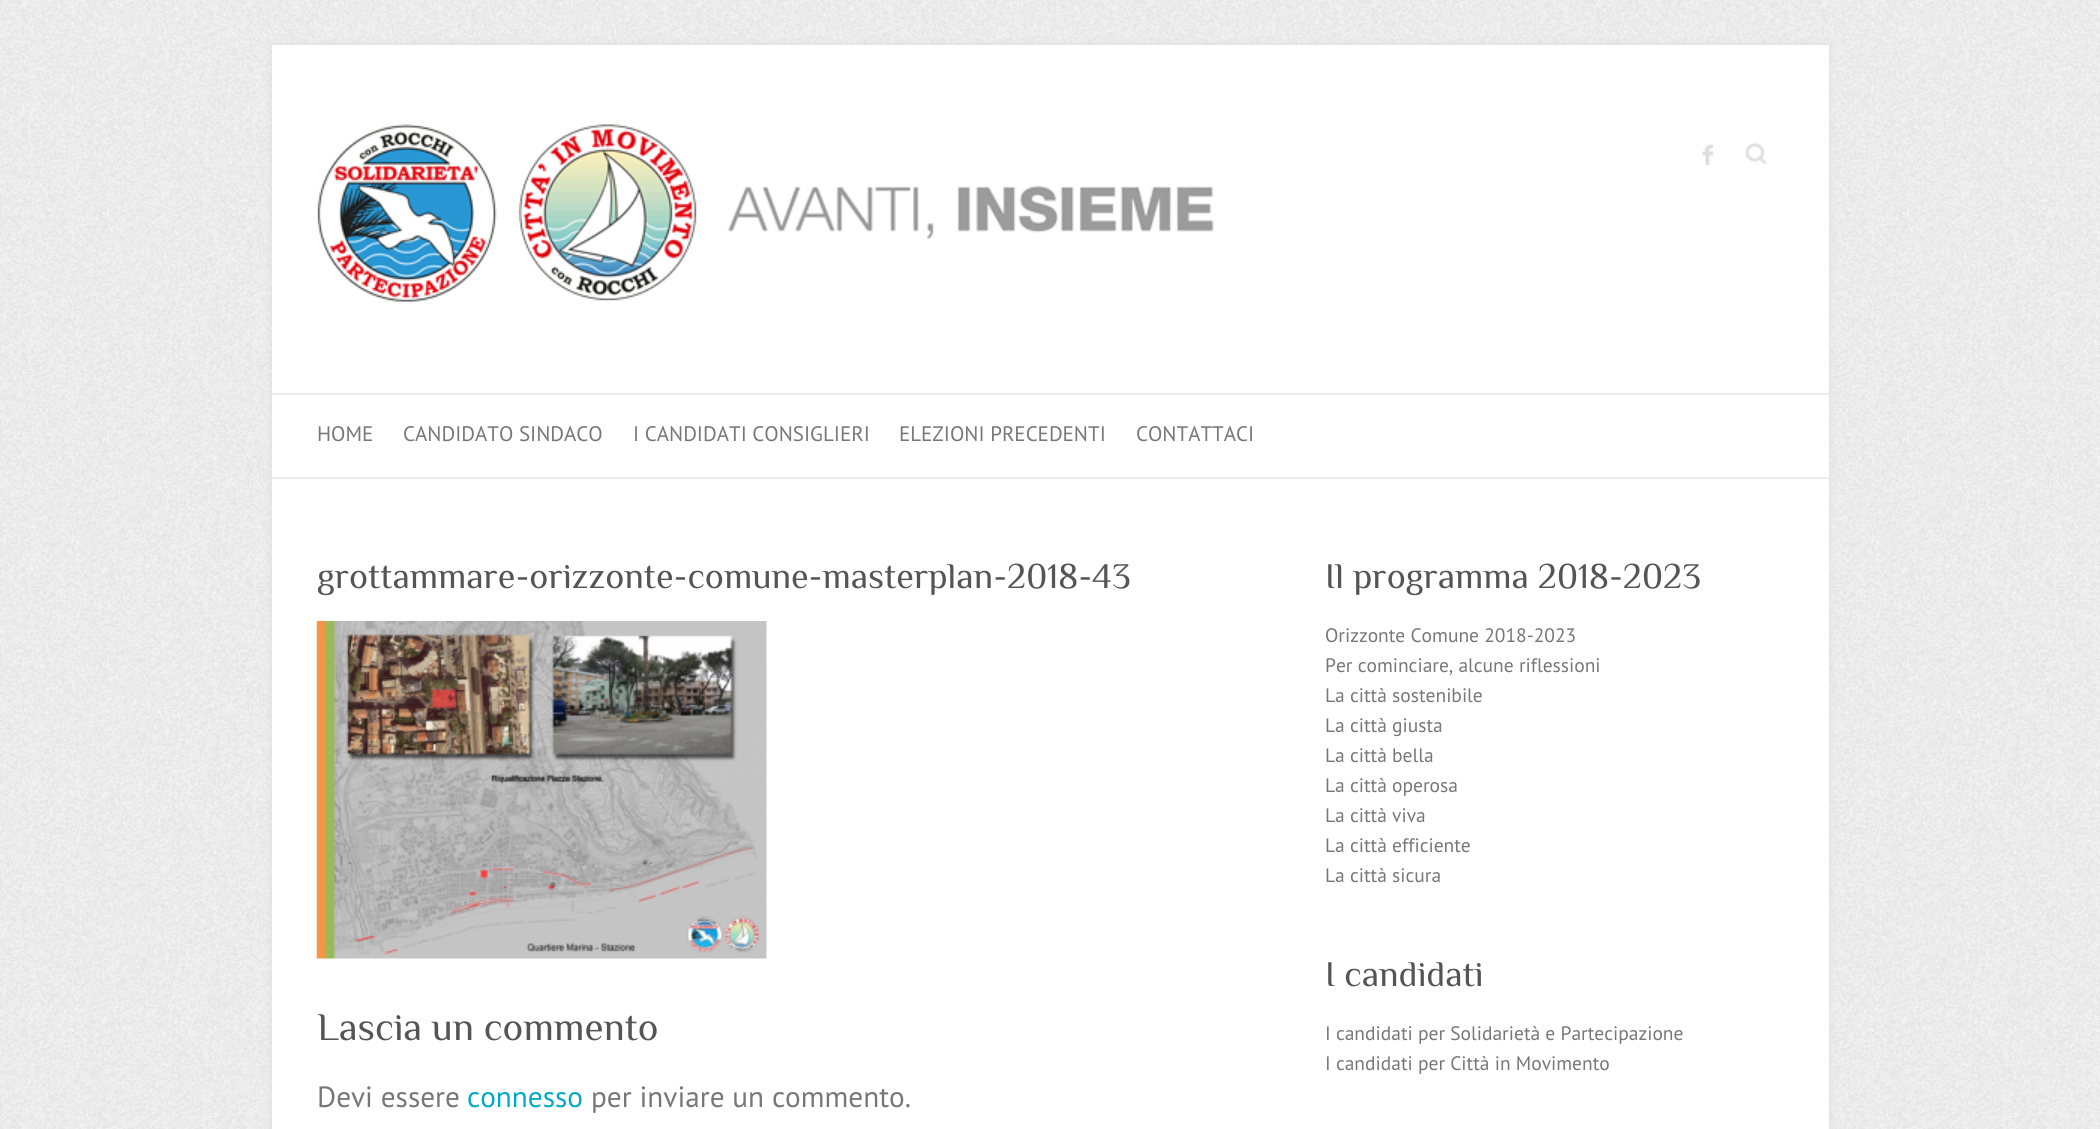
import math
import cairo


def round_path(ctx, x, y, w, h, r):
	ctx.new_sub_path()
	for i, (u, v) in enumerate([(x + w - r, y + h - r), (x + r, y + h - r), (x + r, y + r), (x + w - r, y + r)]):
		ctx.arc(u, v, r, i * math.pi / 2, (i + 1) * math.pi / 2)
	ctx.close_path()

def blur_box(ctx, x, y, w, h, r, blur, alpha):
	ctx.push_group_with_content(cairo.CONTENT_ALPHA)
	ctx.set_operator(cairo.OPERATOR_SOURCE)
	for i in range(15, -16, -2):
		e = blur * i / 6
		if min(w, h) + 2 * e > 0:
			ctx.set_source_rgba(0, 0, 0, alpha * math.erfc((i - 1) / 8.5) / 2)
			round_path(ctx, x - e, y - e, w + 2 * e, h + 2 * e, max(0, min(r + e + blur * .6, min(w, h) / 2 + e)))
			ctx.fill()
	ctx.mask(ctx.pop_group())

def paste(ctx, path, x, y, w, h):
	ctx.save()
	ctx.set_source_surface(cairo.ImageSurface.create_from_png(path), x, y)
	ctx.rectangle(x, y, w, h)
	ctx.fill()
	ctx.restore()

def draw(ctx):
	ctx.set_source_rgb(1, 1, 1)
	ctx.paint()
	paste(ctx, 'media/1.png', 0, 0, 2100, 1129)
	ctx.set_source_rgb(0.867, 0.867, 0.867)
	blur_box(ctx, 272, 45, 1557, 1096, 0, 4, 1)
	ctx.set_source_rgb(1, 1, 1)
	ctx.rectangle(272, 45, 1557, 1084)
	ctx.fill()
	paste(ctx, 'media/2.png', 317, 124, 897, 178)
	paste(ctx, 'media/3.png', 1702, 144, 12, 22)
	paste(ctx, 'media/4.png', 1746, 142, 21, 23)
	ctx.set_source_rgb(0.918, 0.918, 0.918)
	ctx.rectangle(272, 393, 1557, 2)
	ctx.fill()
	ctx.rectangle(272, 477, 1557, 2)
	ctx.fill()
	ctx.select_font_face('PT Sans')
	ctx.set_font_size(21)
	ctx.set_source_rgb(0.467, 0.467, 0.467)
	for x, y, s in [
		(317, 441, 'HOME'),
		(403, 441, 'CANDIDATO SINDACO'),
		(633, 441, 'I CANDIDATI CONSIGLIERI'),
		(899, 441, 'ELEZIONI PRECEDENTI'),
		(1136, 441, 'CONTATTACI'),
	]:
		ctx.move_to(x, y)
		ctx.show_text(s)
	ctx.select_font_face('Philosopher')
	ctx.set_font_size(36)
	ctx.set_source_rgb(0.333, 0.333, 0.333)
	ctx.move_to(317, 588)
	ctx.show_text('grottammare-orizzonte-comune-masterplan-2018-43')
	paste(ctx, 'media/5.png', 316, 621, 451, 338)
	ctx.set_font_size(39)
	ctx.move_to(317, 1040)
	ctx.show_text('Lascia un commento')
	ctx.select_font_face('PT Sans')
	ctx.set_font_size(29.25)
	ctx.set_source_rgb(0.467, 0.467, 0.467)
	ctx.move_to(317, 1107)
	ctx.show_text('Devi essere')
	ctx.set_source_rgb(0.02, 0.663, 0.773)
	ctx.move_to(467, 1107)
	ctx.show_text('connesso')
	ctx.set_source_rgb(0.467, 0.467, 0.467)
	ctx.move_to(591, 1107)
	ctx.show_text('per inviare un commento.')
	ctx.select_font_face('Philosopher')
	ctx.set_font_size(36)
	ctx.set_source_rgb(0.333, 0.333, 0.333)
	ctx.move_to(1325, 588)
	ctx.show_text('Il programma 2018-2023')
	ctx.select_font_face('PT Sans')
	ctx.set_font_size(19.5)
	ctx.set_source_rgb(0.467, 0.467, 0.467)
	for x, y, s in [
		(1325, 642, 'Orizzonte Comune 2018-2023'),
		(1325, 672, 'Per cominciare, alcune riflessioni'),
		(1325, 702, 'La città sostenibile'),
		(1325, 732, 'La città giusta'),
		(1325, 762, 'La città bella'),
		(1325, 792, 'La città operosa'),
		(1325, 822, 'La città viva'),
		(1325, 852, 'La città efficiente'),
		(1325, 882, 'La città sicura'),
	]:
		ctx.move_to(x, y)
		ctx.show_text(s)
	ctx.select_font_face('Philosopher')
	ctx.set_font_size(36)
	ctx.set_source_rgb(0.333, 0.333, 0.333)
	ctx.move_to(1325, 986)
	ctx.show_text('I candidati')
	ctx.select_font_face('PT Sans')
	ctx.set_font_size(19.5)
	ctx.set_source_rgb(0.467, 0.467, 0.467)
	ctx.move_to(1325, 1040)
	ctx.show_text('I candidati per Solidarietà e Partecipazione')
	ctx.move_to(1325, 1070)
	ctx.show_text('I candidati per Città in Movimento')


surface = cairo.ImageSurface(cairo.FORMAT_RGB24, 2100, 1129)
ctx = cairo.Context(surface)
options = cairo.FontOptions()
options.set_hint_metrics(cairo.HINT_METRICS_OFF)
options.set_hint_style(cairo.HINT_STYLE_NONE)
ctx.set_font_options(options)
ctx.set_miter_limit(4)
draw(ctx)
surface.write_to_png('image.png')
